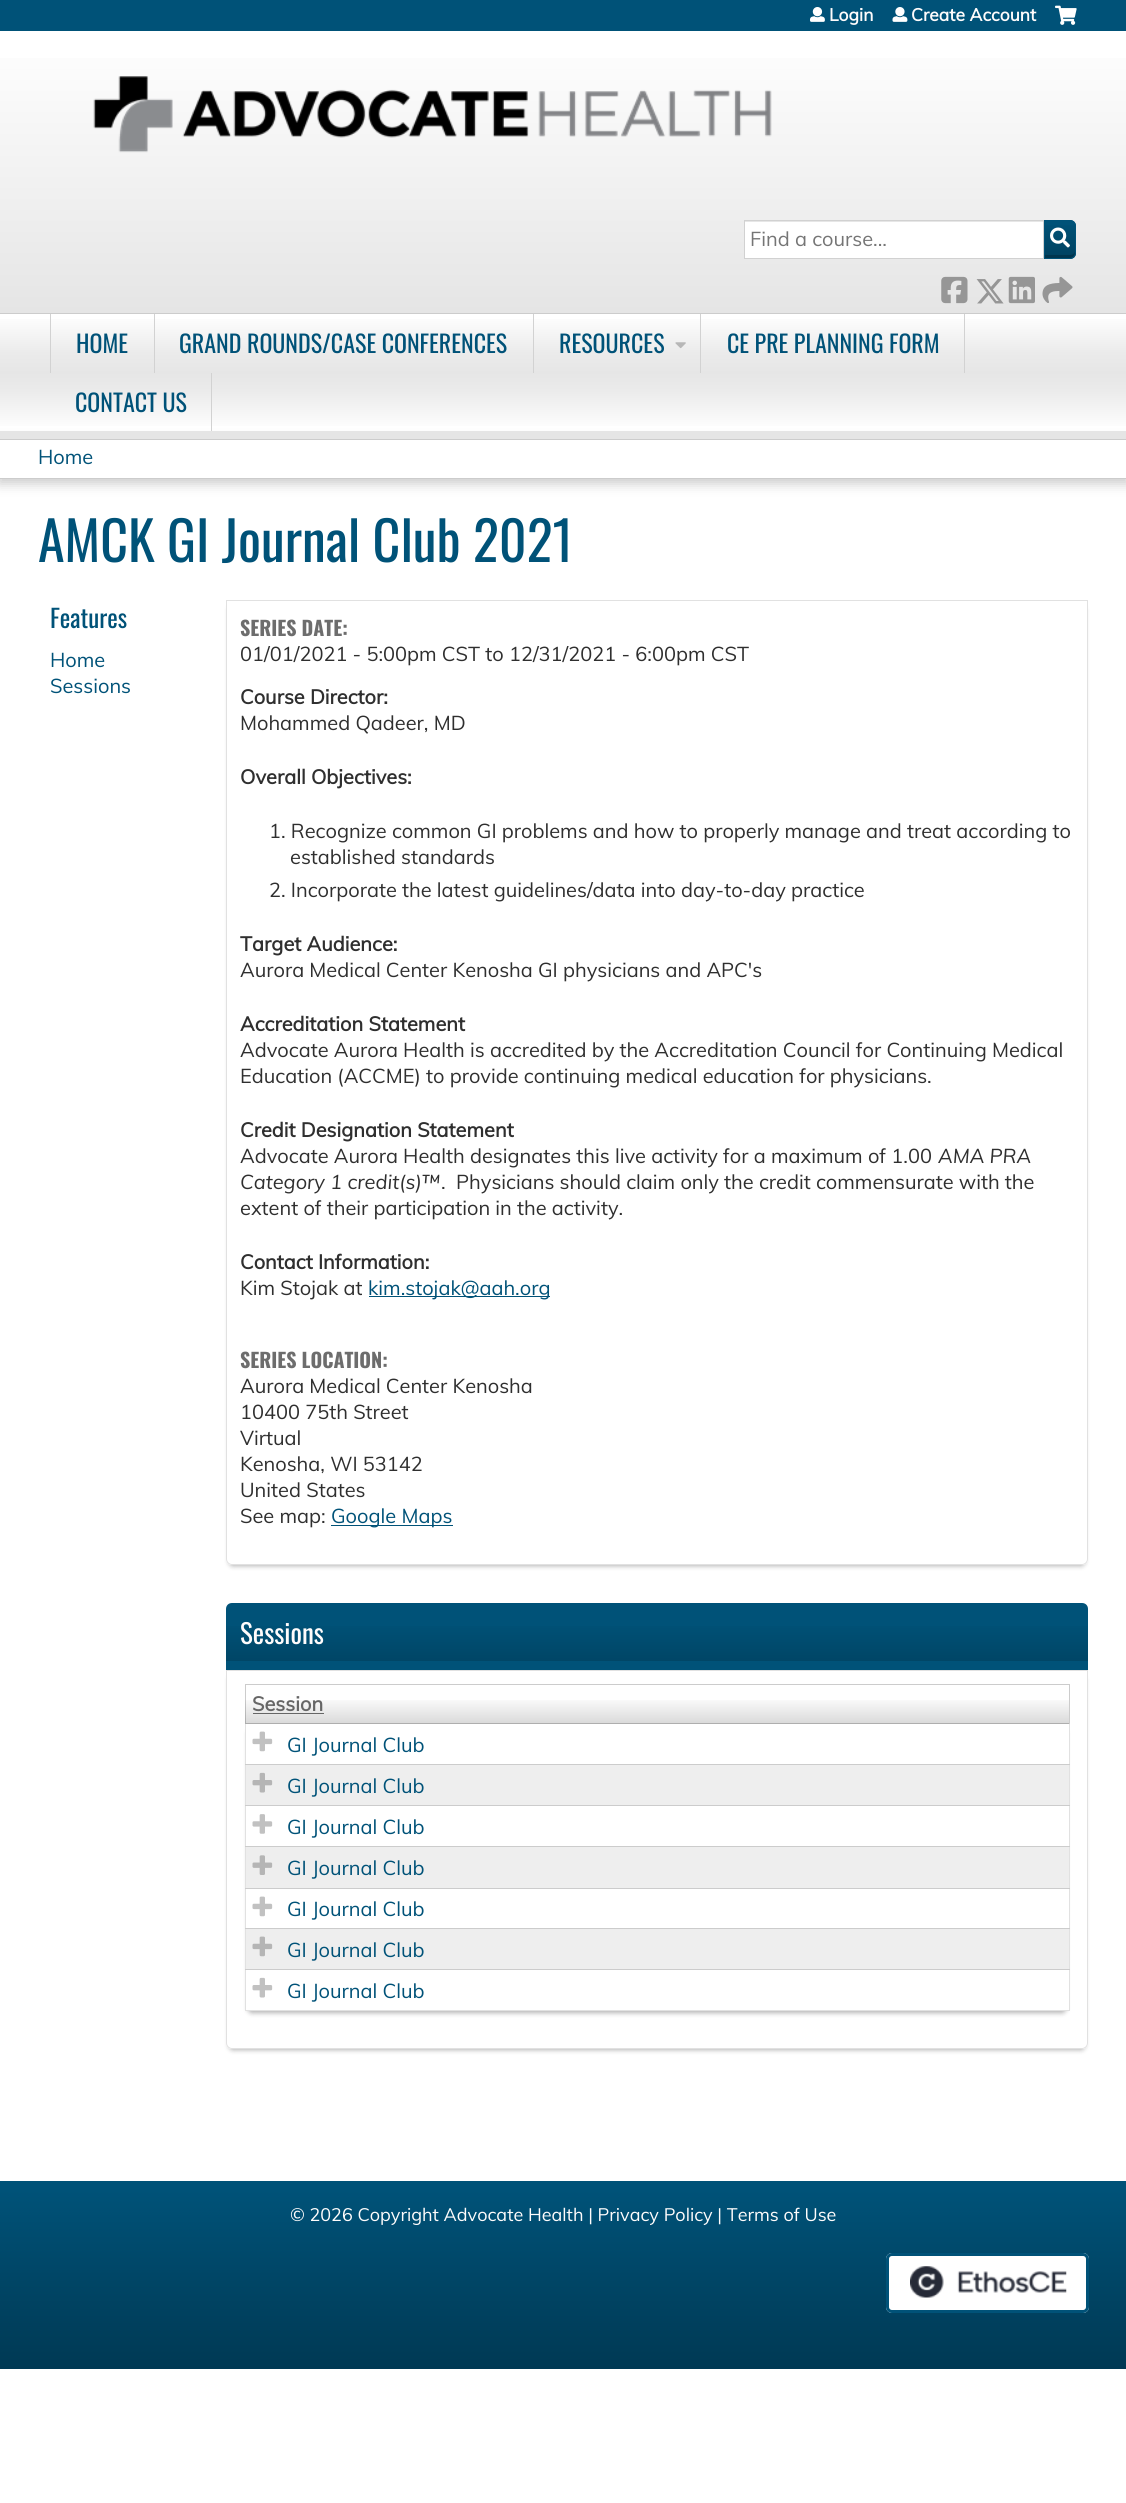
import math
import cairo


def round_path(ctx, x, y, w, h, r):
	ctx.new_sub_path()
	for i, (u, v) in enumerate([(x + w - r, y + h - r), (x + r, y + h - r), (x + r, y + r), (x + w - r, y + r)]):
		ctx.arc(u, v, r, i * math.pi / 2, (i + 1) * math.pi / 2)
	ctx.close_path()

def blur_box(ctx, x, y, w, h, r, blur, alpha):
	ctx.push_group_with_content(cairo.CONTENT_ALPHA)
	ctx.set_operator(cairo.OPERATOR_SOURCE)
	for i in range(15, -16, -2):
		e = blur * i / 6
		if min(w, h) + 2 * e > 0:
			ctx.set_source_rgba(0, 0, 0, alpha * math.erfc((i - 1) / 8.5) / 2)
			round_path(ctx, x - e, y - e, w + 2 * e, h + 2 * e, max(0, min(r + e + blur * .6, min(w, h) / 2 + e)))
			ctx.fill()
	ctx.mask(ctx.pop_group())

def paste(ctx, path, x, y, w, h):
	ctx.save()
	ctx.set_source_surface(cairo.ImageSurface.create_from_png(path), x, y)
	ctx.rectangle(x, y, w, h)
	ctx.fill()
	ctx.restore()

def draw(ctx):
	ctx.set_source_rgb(1, 1, 1)
	ctx.paint()
	gradient = cairo.LinearGradient(563, 313, 563, 31)
	gradient.add_color_stop_rgba(0, 0.898, 0.898, 0.898, 1)
	gradient.add_color_stop_rgba(1, 1, 1, 1, 1)
	ctx.set_source(gradient)
	ctx.rectangle(0, 58, 1126, 255)
	ctx.fill()
	ctx.set_source_rgb(0, 0.322, 0.471)
	ctx.rectangle(0, 0, 1126, 31)
	ctx.fill()
	paste(ctx, 'media/1.png', 93, 76, 679, 77)
	paste(ctx, 'media/2.png', 810, 7, 15, 15)
	ctx.select_font_face('Muli', cairo.FONT_SLANT_NORMAL, cairo.FONT_WEIGHT_BOLD)
	ctx.set_font_size(17.5)
	ctx.set_source_rgb(1, 0.988, 0.988)
	ctx.move_to(829, 21)
	ctx.show_text('Login')
	paste(ctx, 'media/3.png', 892, 7, 16, 15)
	ctx.move_to(911, 21)
	ctx.show_text('Create Account')
	paste(ctx, 'media/4.png', 1055, 5, 22, 20)
	ctx.set_source_rgb(0, 0.322, 0.471)
	ctx.new_path()
	ctx.move_to(1044, 220)
	ctx.line_to(1070, 220)
	ctx.curve_to(1073.5, 220, 1076, 222.5, 1076, 226)
	ctx.line_to(1076, 253)
	ctx.curve_to(1076, 256.5, 1073.5, 259, 1070, 259)
	ctx.line_to(1044, 259)
	ctx.close_path()
	ctx.fill()
	ctx.save()
	ctx.new_path()
	ctx.move_to(1044, 220)
	ctx.line_to(1070, 220)
	ctx.curve_to(1073.5, 220, 1076, 222.5, 1076, 226)
	ctx.line_to(1076, 253)
	ctx.curve_to(1076, 256.5, 1073.5, 259, 1070, 259)
	ctx.line_to(1044, 259)
	ctx.close_path()
	ctx.clip()
	gradient = cairo.LinearGradient(1060, 258, 1060, 221)
	gradient.add_color_stop_rgba(0, 0, 0, 0, 0.2)
	gradient.add_color_stop_rgba(1, 0, 0, 0, 0)
	ctx.set_source(gradient)
	ctx.rectangle(1045, 225, 31, 33)
	ctx.fill()
	ctx.restore()
	ctx.set_source_rgb(0, 0.208, 0.306)
	ctx.new_path()
	ctx.move_to(1045, 255)
	ctx.line_to(1045, 258)
	ctx.line_to(1061.5, 258)
	ctx.curve_to(1067.5, 258, 1075, 260, 1075, 252)
	ctx.curve_to(1074, 254, 1072, 255, 1070, 255)
	ctx.close_path()
	ctx.fill()
	ctx.new_path()
	ctx.move_to(1044.5, 220.5)
	ctx.line_to(1070, 220.5)
	ctx.curve_to(1073, 220.5, 1075.5, 223, 1075.5, 226)
	ctx.line_to(1075.5, 253)
	ctx.curve_to(1075.5, 256, 1073, 258.5, 1070, 258.5)
	ctx.line_to(1044.5, 258.5)
	ctx.close_path()
	ctx.set_source_rgb(0, 0.322, 0.471)
	ctx.set_line_width(1)
	ctx.stroke()
	ctx.set_source_rgb(1, 1, 1)
	ctx.rectangle(745, 222, 298, 36)
	ctx.fill()
	ctx.set_source_rgb(0.902, 0.902, 0.902)
	ctx.rectangle(745, 221, 298, 1)
	ctx.fill()
	ctx.rectangle(744.5, 220.5, 299, 38)
	ctx.set_source_rgb(0.82, 0.82, 0.82)
	ctx.stroke()
	ctx.select_font_face('Muli')
	ctx.set_font_size(20)
	ctx.set_source_rgb(0.459, 0.459, 0.459)
	ctx.move_to(750, 246)
	ctx.show_text('Find a course...')
	paste(ctx, 'media/5.png', 1050, 227, 20, 21)
	paste(ctx, 'media/6.png', 941, 276, 27, 28)
	paste(ctx, 'media/7.png', 976, 279, 28, 25)
	paste(ctx, 'media/8.png', 1008, 276, 27, 28)
	paste(ctx, 'media/9.png', 1042, 276, 31, 27)
	ctx.set_source_rgb(0, 0, 0)
	blur_box(ctx, -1, 441, 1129, 43, 0, 6, 0.2)
	gradient = cairo.LinearGradient(563, 314, 563, 431)
	gradient.add_color_stop_rgba(0, 1, 1, 1, 1)
	gradient.add_color_stop_rgba(0.33, 0.922, 0.922, 0.922, 1)
	gradient.add_color_stop_rgba(0.5, 0.902, 0.902, 0.902, 1)
	gradient.add_color_stop_rgba(0.66, 0.922, 0.922, 0.922, 1)
	gradient.add_color_stop_rgba(1, 1, 1, 1, 1)
	ctx.set_source(gradient)
	ctx.rectangle(0, 319, 1126, 107)
	ctx.fill()
	ctx.set_source_rgb(0.8, 0.8, 0.8)
	ctx.rectangle(0, 313, 1126, 1)
	ctx.fill()
	ctx.set_source_rgb(0.898, 0.898, 0.898)
	ctx.rectangle(0, 431, 1126, 8)
	ctx.fill()
	ctx.set_source_rgb(0.824, 0.824, 0.824)
	ctx.rectangle(154, 314, 1, 59)
	ctx.rectangle(50, 314, 1, 59)
	ctx.fill()
	ctx.select_font_face('Oswald')
	ctx.set_font_size(24)
	ctx.set_source_rgb(0, 0.322, 0.471)
	ctx.move_to(76, 353)
	ctx.show_text('HOME')
	ctx.set_source_rgb(0.824, 0.824, 0.824)
	ctx.rectangle(533, 314, 1, 59)
	ctx.fill()
	ctx.set_source_rgb(0, 0.322, 0.471)
	ctx.move_to(179, 353)
	ctx.show_text('GRAND ROUNDS/CASE CONFERENCES')
	ctx.set_source_rgb(0.824, 0.824, 0.824)
	ctx.rectangle(700, 314, 1, 59)
	ctx.fill()
	ctx.set_source_rgb(0, 0.322, 0.471)
	ctx.move_to(559, 353)
	ctx.show_text('RESOURCES')
	paste(ctx, 'media/10.png', 675, 342, 11, 7)
	ctx.set_source_rgb(0.824, 0.824, 0.824)
	ctx.rectangle(964, 314, 1, 59)
	ctx.fill()
	ctx.set_source_rgb(0, 0.322, 0.471)
	ctx.move_to(727, 353)
	ctx.show_text('CE PRE PLANNING FORM')
	ctx.set_source_rgb(0.824, 0.824, 0.824)
	ctx.rectangle(211, 373, 1, 58)
	ctx.fill()
	ctx.set_source_rgb(0, 0.322, 0.471)
	ctx.move_to(75, 412)
	ctx.show_text('CONTACT US')
	ctx.set_source_rgb(1, 1, 1)
	ctx.rectangle(0, 440, 1126, 38)
	ctx.fill()
	ctx.set_source_rgb(0.8, 0.8, 0.8)
	ctx.rectangle(0, 439, 1126, 1)
	ctx.rectangle(0, 478, 1126, 1)
	ctx.fill()
	ctx.select_font_face('Muli')
	ctx.set_font_size(20)
	ctx.set_source_rgb(0, 0.322, 0.471)
	ctx.move_to(38, 464)
	ctx.show_text('Home')
	ctx.select_font_face('Oswald')
	ctx.set_font_size(54)
	ctx.move_to(38, 562)
	ctx.show_text('AMCK GI Journal Club 2021')
	ctx.set_font_size(25)
	ctx.move_to(50, 628)
	ctx.show_text('Features')
	ctx.select_font_face('Muli')
	ctx.set_font_size(20)
	ctx.move_to(50, 667)
	ctx.show_text('Home')
	ctx.move_to(50, 693)
	ctx.show_text('Sessions')
	ctx.save()
	ctx.set_fill_rule(cairo.FILL_RULE_EVEN_ODD)
	ctx.new_path()
	ctx.move_to(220, 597)
	ctx.line_to(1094, 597)
	ctx.line_to(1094, 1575)
	ctx.line_to(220, 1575)
	ctx.close_path()
	ctx.move_to(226, 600)
	ctx.line_to(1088, 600)
	ctx.line_to(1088, 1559)
	ctx.curve_to(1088, 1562.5, 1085.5, 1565, 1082, 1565)
	ctx.line_to(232, 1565)
	ctx.curve_to(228.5, 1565, 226, 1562.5, 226, 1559)
	ctx.close_path()
	ctx.clip()
	ctx.set_source_rgb(0, 0, 0)
	blur_box(ctx, 229, 606, 856, 960, 4, 2.5, 0.3)
	ctx.restore()
	ctx.new_path()
	ctx.move_to(226.5, 600.5)
	ctx.line_to(1087.5, 600.5)
	ctx.line_to(1087.5, 1559)
	ctx.curve_to(1087.5, 1562, 1085, 1564.5, 1082, 1564.5)
	ctx.line_to(232, 1564.5)
	ctx.curve_to(229, 1564.5, 226.5, 1562, 226.5, 1559)
	ctx.close_path()
	ctx.set_source_rgb(0.882, 0.882, 0.882)
	ctx.stroke()
	ctx.select_font_face('Oswald', cairo.FONT_SLANT_NORMAL, cairo.FONT_WEIGHT_BOLD)
	ctx.set_source_rgb(0.427, 0.427, 0.427)
	ctx.move_to(240, 636)
	ctx.show_text('SERIES DATE:')
	ctx.select_font_face('Muli')
	ctx.set_source_rgb(0.184, 0.184, 0.184)
	ctx.move_to(240, 661)
	ctx.show_text('01/01/2021 - 5:00pm CST to 12/31/2021 - 6:00pm CST')
	ctx.select_font_face('Muli', cairo.FONT_SLANT_NORMAL, cairo.FONT_WEIGHT_BOLD)
	ctx.move_to(240, 704)
	ctx.show_text('Course Director:')
	ctx.select_font_face('Muli')
	ctx.move_to(240, 730)
	ctx.show_text('Mohammed Qadeer, MD')
	ctx.select_font_face('Muli', cairo.FONT_SLANT_NORMAL, cairo.FONT_WEIGHT_BOLD)
	ctx.move_to(240, 784)
	ctx.show_text('Overall Objectives:')
	ctx.select_font_face('Muli')
	for x, y, s in [
		(269, 838, '1. Recognize common GI problems and how to properly manage and treat according to'),
		(290, 864, 'established standards'),
		(269, 897, '2. Incorporate the latest guidelines/data into day-to-day practice'),
	]:
		ctx.move_to(x, y)
		ctx.show_text(s)
	ctx.select_font_face('Muli', cairo.FONT_SLANT_NORMAL, cairo.FONT_WEIGHT_BOLD)
	ctx.move_to(240, 951)
	ctx.show_text('Target Audience:')
	ctx.select_font_face('Muli')
	ctx.move_to(240, 977)
	ctx.show_text('Aurora Medical Center Kenosha GI physicians and APC\'s')
	ctx.select_font_face('Muli', cairo.FONT_SLANT_NORMAL, cairo.FONT_WEIGHT_BOLD)
	ctx.move_to(240, 1031)
	ctx.show_text('Accreditation Statement')
	ctx.select_font_face('Muli')
	ctx.move_to(240, 1057)
	ctx.show_text('Advocate Aurora Health is accredited by the Accreditation Council for Continuing Medical')
	ctx.move_to(240, 1083)
	ctx.show_text('Education (ACCME) to provide continuing medical education for physicians.')
	ctx.select_font_face('Muli', cairo.FONT_SLANT_NORMAL, cairo.FONT_WEIGHT_BOLD)
	ctx.move_to(240, 1137)
	ctx.show_text('Credit Designation Statement')
	ctx.select_font_face('Muli')
	ctx.move_to(240, 1163)
	ctx.show_text('Advocate Aurora Health designates this live activity for a maximum of 1.00')
	ctx.select_font_face('Muli', cairo.FONT_SLANT_ITALIC)
	ctx.move_to(938, 1163)
	ctx.show_text('AMA PRA')
	ctx.move_to(240, 1189)
	ctx.show_text('Category 1 credit(s)™')
	ctx.select_font_face('Muli')
	ctx.move_to(441, 1189)
	ctx.show_text('.  Physicians should claim only the credit commensurate with the')
	ctx.move_to(240, 1215)
	ctx.show_text('extent of their participation in the activity.')
	ctx.select_font_face('Muli', cairo.FONT_SLANT_NORMAL, cairo.FONT_WEIGHT_BOLD)
	ctx.move_to(240, 1269)
	ctx.show_text('Contact Information:')
	ctx.select_font_face('Muli')
	ctx.move_to(240, 1295)
	ctx.show_text('Kim Stojak at')
	ctx.set_source_rgb(0, 0.322, 0.471)
	ctx.rectangle(369, 1296, 181, 1)
	ctx.fill()
	ctx.move_to(368, 1295)
	ctx.show_text('kim.stojak@aah.org')
	ctx.select_font_face('Oswald', cairo.FONT_SLANT_NORMAL, cairo.FONT_WEIGHT_BOLD)
	ctx.set_source_rgb(0.427, 0.427, 0.427)
	ctx.move_to(240, 1368)
	ctx.show_text('SERIES LOCATION:')
	ctx.select_font_face('Muli')
	ctx.set_source_rgb(0.184, 0.184, 0.184)
	for x, y, s in [
		(240, 1393, 'Aurora Medical Center Kenosha'),
		(240, 1419, '10400 75th Street'),
		(240, 1445, 'Virtual'),
		(240, 1471, 'Kenosha, WI 53142'),
		(240, 1497, 'United States'),
		(240, 1523, 'See map:'),
	]:
		ctx.move_to(x, y)
		ctx.show_text(s)
	ctx.set_source_rgb(0, 0.322, 0.471)
	ctx.rectangle(331, 1525, 122, 1)
	ctx.fill()
	ctx.move_to(331, 1523)
	ctx.show_text('Google Maps')
	ctx.new_path()
	ctx.move_to(232, 1603)
	ctx.line_to(1082, 1603)
	ctx.curve_to(1085.5, 1603, 1088, 1605.5, 1088, 1609)
	ctx.line_to(1088, 1670)
	ctx.line_to(226, 1670)
	ctx.line_to(226, 1609)
	ctx.curve_to(226, 1605.5, 228.5, 1603, 232, 1603)
	ctx.close_path()
	ctx.fill()
	gradient = cairo.LinearGradient(657, 1661, 657, 1603)
	gradient.add_color_stop_rgba(0, 0, 0, 0, 0.15)
	gradient.add_color_stop_rgba(0.7, 0, 0, 0, 0)
	ctx.set_source(gradient)
	ctx.rectangle(226, 1626, 862, 35)
	ctx.fill()
	ctx.select_font_face('Oswald')
	ctx.set_font_size(27)
	ctx.set_source_rgb(1, 0.988, 0.988)
	ctx.move_to(240, 1644)
	ctx.show_text('Sessions')
	ctx.save()
	ctx.set_fill_rule(cairo.FILL_RULE_EVEN_ODD)
	ctx.new_path()
	ctx.move_to(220, 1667)
	ctx.line_to(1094, 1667)
	ctx.line_to(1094, 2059)
	ctx.line_to(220, 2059)
	ctx.close_path()
	ctx.move_to(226, 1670)
	ctx.line_to(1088, 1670)
	ctx.line_to(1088, 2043)
	ctx.curve_to(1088, 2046.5, 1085.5, 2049, 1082, 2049)
	ctx.line_to(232, 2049)
	ctx.curve_to(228.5, 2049, 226, 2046.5, 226, 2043)
	ctx.close_path()
	ctx.clip()
	ctx.set_source_rgb(0, 0, 0)
	blur_box(ctx, 229, 1676, 856, 374, 4, 2.5, 0.3)
	ctx.restore()
	ctx.new_path()
	ctx.move_to(226.5, 1670.5)
	ctx.line_to(1087.5, 1670.5)
	ctx.line_to(1087.5, 2043)
	ctx.curve_to(1087.5, 2046, 1085, 2048.5, 1082, 2048.5)
	ctx.line_to(232, 2048.5)
	ctx.curve_to(229, 2048.5, 226.5, 2046, 226.5, 2043)
	ctx.close_path()
	ctx.set_source_rgb(0.882, 0.882, 0.882)
	ctx.stroke()
	ctx.set_source_rgb(0.8, 0.8, 0.8)
	ctx.rectangle(245, 1684, 825, 1)
	ctx.fill()
	ctx.set_source_rgb(0, 0, 0)
	blur_box(ctx, 248, 1730, 818, 283, 4, 2.5, 0.3)
	ctx.set_source_rgb(0.882, 0.882, 0.882)
	ctx.rectangle(1069, 1723, 1, 288)
	ctx.fill()
	ctx.set_source_rgb(0.8, 0.8, 0.8)
	ctx.rectangle(1069, 1684, 1, 40)
	ctx.fill()
	ctx.set_source_rgb(0.882, 0.882, 0.882)
	ctx.rectangle(245, 2010, 825, 1)
	ctx.rectangle(245, 1723, 1, 288)
	ctx.fill()
	ctx.set_source_rgb(0.8, 0.8, 0.8)
	ctx.rectangle(245, 1723, 825, 1)
	ctx.rectangle(245, 1684, 1, 40)
	ctx.fill()
	gradient = cairo.LinearGradient(657, 1724, 657, 1684)
	gradient.add_color_stop_rgba(0, 0, 0, 0, 0.15)
	gradient.add_color_stop_rgba(0.7, 0, 0, 0, 0)
	ctx.set_source(gradient)
	ctx.rectangle(245, 1700, 824, 24)
	ctx.fill()
	ctx.select_font_face('Muli', cairo.FONT_SLANT_NORMAL, cairo.FONT_WEIGHT_BOLD)
	ctx.set_font_size(20)
	ctx.set_source_rgb(0.4, 0.4, 0.4)
	ctx.move_to(252, 1711)
	ctx.show_text('Session')
	ctx.rectangle(253, 1713, 71, 1)
	ctx.fill()
	ctx.set_source_rgb(1, 1, 1)
	ctx.rectangle(246, 1725, 823, 39)
	ctx.fill()
	paste(ctx, 'media/11.png', 252, 1731, 21, 21)
	ctx.select_font_face('Muli')
	ctx.set_source_rgb(0, 0.322, 0.471)
	ctx.move_to(287, 1752)
	ctx.show_text('GI Journal Club')
	ctx.set_source_rgb(0.933, 0.933, 0.933)
	ctx.rectangle(246, 1765, 823, 40)
	ctx.fill()
	ctx.set_source_rgb(0.8, 0.8, 0.8)
	ctx.rectangle(245, 1764, 825, 1)
	ctx.fill()
	paste(ctx, 'media/12.png', 252, 1772, 21, 21)
	ctx.set_source_rgb(0, 0.322, 0.471)
	ctx.move_to(287, 1793)
	ctx.show_text('GI Journal Club')
	ctx.set_source_rgb(1, 1, 1)
	ctx.rectangle(246, 1806, 823, 40)
	ctx.fill()
	ctx.set_source_rgb(0.8, 0.8, 0.8)
	ctx.rectangle(245, 1805, 825, 1)
	ctx.fill()
	paste(ctx, 'media/13.png', 252, 1814, 21, 20)
	ctx.set_source_rgb(0, 0.322, 0.471)
	ctx.move_to(287, 1834)
	ctx.show_text('GI Journal Club')
	ctx.set_source_rgb(0.933, 0.933, 0.933)
	ctx.rectangle(246, 1847, 823, 41)
	ctx.fill()
	ctx.set_source_rgb(0.8, 0.8, 0.8)
	ctx.rectangle(245, 1846, 825, 1)
	ctx.fill()
	paste(ctx, 'media/14.png', 252, 1855, 21, 20)
	ctx.set_source_rgb(0, 0.322, 0.471)
	ctx.move_to(287, 1875)
	ctx.show_text('GI Journal Club')
	ctx.set_source_rgb(1, 1, 1)
	ctx.rectangle(246, 1889, 823, 39)
	ctx.fill()
	ctx.set_source_rgb(0.8, 0.8, 0.8)
	ctx.rectangle(245, 1888, 825, 1)
	ctx.fill()
	paste(ctx, 'media/11.png', 252, 1896, 21, 21)
	ctx.set_source_rgb(0, 0.322, 0.471)
	ctx.move_to(287, 1916)
	ctx.show_text('GI Journal Club')
	ctx.set_source_rgb(0.933, 0.933, 0.933)
	ctx.rectangle(246, 1929, 823, 40)
	ctx.fill()
	ctx.set_source_rgb(0.8, 0.8, 0.8)
	ctx.rectangle(245, 1928, 825, 1)
	ctx.fill()
	paste(ctx, 'media/15.png', 252, 1936, 21, 21)
	ctx.set_source_rgb(0, 0.322, 0.471)
	ctx.move_to(287, 1957)
	ctx.show_text('GI Journal Club')
	ctx.set_source_rgb(1, 1, 1)
	ctx.rectangle(246, 1970, 823, 40)
	ctx.fill()
	ctx.set_source_rgb(0.8, 0.8, 0.8)
	ctx.rectangle(245, 1969, 825, 1)
	ctx.fill()
	paste(ctx, 'media/16.png', 252, 1977, 21, 21)
	ctx.set_source_rgb(0, 0.322, 0.471)
	ctx.move_to(287, 1998)
	ctx.show_text('GI Journal Club')
	gradient = cairo.LinearGradient(563, 2369, 563, 2189)
	gradient.add_color_stop_rgba(0, 0, 0.224, 0.329, 1)
	gradient.add_color_stop_rgba(1, 0, 0.322, 0.471, 1)
	ctx.set_source(gradient)
	ctx.rectangle(0, 2189, 1126, 180)
	ctx.fill()
	ctx.set_source_rgb(0, 0.322, 0.471)
	ctx.rectangle(0, 2181, 1126, 8)
	ctx.fill()
	ctx.set_font_size(18)
	ctx.set_source_rgb(1, 0.988, 0.988)
	ctx.move_to(290, 2221)
	ctx.show_text('© 2026 Copyright Advocate Health | Privacy Policy | Terms of Use')
	ctx.set_source_rgb(1, 1, 1)
	round_path(ctx, 886, 2253, 203, 60, 6)
	ctx.fill()
	paste(ctx, 'media/17.png', 910, 2266, 157, 32)
	round_path(ctx, 887.5, 2254.5, 200, 57, 4.5)
	ctx.set_source_rgb(0, 0.322, 0.471)
	ctx.set_line_width(3)
	ctx.stroke()


surface = cairo.ImageSurface(cairo.FORMAT_RGB24, 1126, 2503)
ctx = cairo.Context(surface)
options = cairo.FontOptions()
options.set_hint_metrics(cairo.HINT_METRICS_OFF)
options.set_hint_style(cairo.HINT_STYLE_NONE)
ctx.set_font_options(options)
ctx.set_miter_limit(4)
draw(ctx)
surface.write_to_png('image.png')
